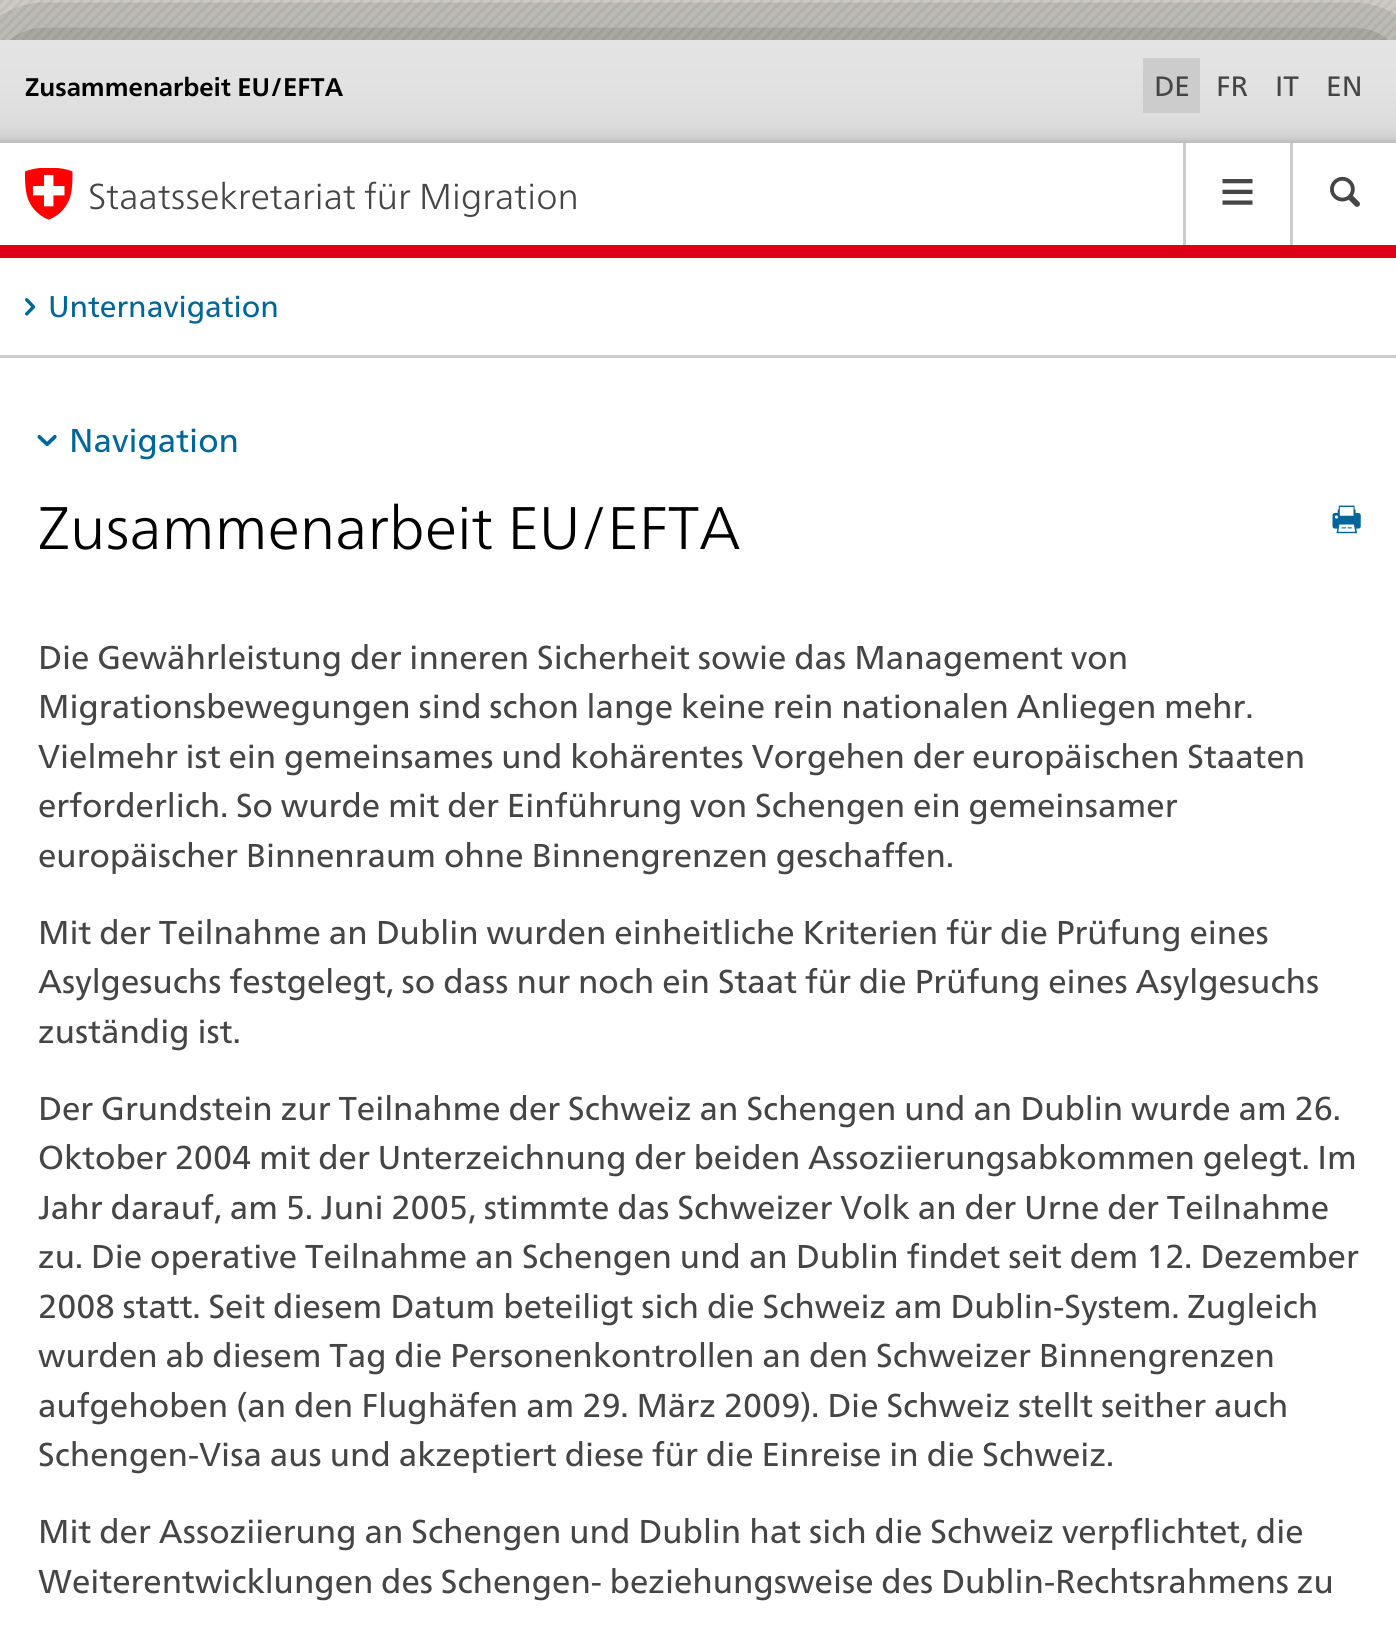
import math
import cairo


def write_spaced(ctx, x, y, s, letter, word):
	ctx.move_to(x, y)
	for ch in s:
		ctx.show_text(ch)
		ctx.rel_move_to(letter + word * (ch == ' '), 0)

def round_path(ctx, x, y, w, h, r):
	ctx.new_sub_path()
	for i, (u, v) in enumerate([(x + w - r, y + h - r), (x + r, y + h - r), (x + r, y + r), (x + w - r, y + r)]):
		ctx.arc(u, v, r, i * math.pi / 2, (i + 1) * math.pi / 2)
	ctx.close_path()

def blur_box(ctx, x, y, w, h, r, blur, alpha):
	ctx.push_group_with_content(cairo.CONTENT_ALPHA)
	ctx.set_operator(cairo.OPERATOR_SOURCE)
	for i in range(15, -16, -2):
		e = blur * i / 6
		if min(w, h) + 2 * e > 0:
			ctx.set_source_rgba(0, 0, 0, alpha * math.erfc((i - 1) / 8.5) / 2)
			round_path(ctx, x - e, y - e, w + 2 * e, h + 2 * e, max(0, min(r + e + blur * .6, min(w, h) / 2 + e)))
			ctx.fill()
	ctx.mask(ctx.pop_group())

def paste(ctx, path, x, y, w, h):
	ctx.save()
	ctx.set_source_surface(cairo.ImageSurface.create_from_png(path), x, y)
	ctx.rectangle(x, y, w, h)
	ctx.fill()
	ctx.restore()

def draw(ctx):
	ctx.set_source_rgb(1, 1, 1)
	ctx.paint()
	paste(ctx, 'media/1.png', 0, 0, 1396, 40)
	ctx.set_source_rgb(0, 0, 0)
	blur_box(ctx, 0, 40, 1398, 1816, 0, 75, 0.6)
	ctx.set_source_rgb(1, 1, 1)
	ctx.rectangle(0, 143, 1396, 1488)
	ctx.fill()
	gradient = cairo.LinearGradient(699, 40, 699, 143)
	gradient.add_color_stop_rgba(0, 0.894, 0.894, 0.894, 1)
	gradient.add_color_stop_rgba(0.39, 0.886, 0.886, 0.886, 1)
	gradient.add_color_stop_rgba(0.79, 0.867, 0.867, 0.867, 1)
	gradient.add_color_stop_rgba(0.91, 0.835, 0.835, 0.835, 1)
	gradient.add_color_stop_rgba(0.95, 0.812, 0.812, 0.812, 1)
	gradient.add_color_stop_rgba(0.99, 0.745, 0.745, 0.745, 1)
	ctx.set_source(gradient)
	ctx.rectangle(0, 40, 1396, 103)
	ctx.fill()
	ctx.select_font_face('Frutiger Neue', cairo.FONT_SLANT_NORMAL, cairo.FONT_WEIGHT_BOLD)
	ctx.set_font_size(25.5)
	ctx.set_source_rgb(0, 0, 0)
	ctx.move_to(25, 96)
	ctx.show_text('Zusammenarbeit EU/EFTA')
	ctx.set_source_rgb(0.8, 0.8, 0.8)
	ctx.rectangle(1143, 58, 57, 55)
	ctx.fill()
	ctx.select_font_face('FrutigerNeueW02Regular')
	ctx.set_font_size(28)
	ctx.set_source_rgb(0.271, 0.271, 0.271)
	for x, y, s in [
		(1154, 96, 'DE'),
		(1216, 96, 'FR'),
		(1275, 96, 'IT'),
		(1326, 96, 'EN'),
	]:
		ctx.move_to(x, y)
		ctx.show_text(s)
	ctx.set_source_rgb(0.863, 0, 0.094)
	ctx.rectangle(0, 245, 1396, 13)
	ctx.fill()
	paste(ctx, 'media/2.png', 25, 168, 48, 52)
	ctx.select_font_face('Frutiger Neue Light')
	ctx.set_font_size(36)
	ctx.set_source_rgb(0.271, 0.271, 0.271)
	ctx.move_to(88, 209)
	ctx.show_text('Staatssekretariat für Migration')
	ctx.set_source_rgb(0.8, 0.8, 0.8)
	ctx.rectangle(1183, 143, 3, 102)
	ctx.fill()
	paste(ctx, 'media/3.png', 1222, 179, 31, 26)
	ctx.rectangle(1290, 143, 3, 102)
	ctx.fill()
	paste(ctx, 'media/4.png', 1330, 176, 30, 31)
	ctx.rectangle(0, 355, 1396, 3)
	ctx.fill()
	paste(ctx, 'media/5.png', 25, 298, 11, 18)
	ctx.select_font_face('FrutigerNeueW02Regular')
	ctx.set_font_size(30)
	ctx.set_source_rgb(0, 0.4, 0.6)
	ctx.move_to(48, 317)
	ctx.show_text('Unternavigation')
	paste(ctx, 'media/6.png', 37, 434, 20, 13)
	ctx.set_font_size(33)
	ctx.move_to(69, 452)
	ctx.show_text('Navigation')
	ctx.select_font_face('Frutiger Neue Light')
	ctx.set_font_size(60)
	ctx.set_source_rgb(0, 0, 0)
	ctx.move_to(38, 549)
	ctx.show_text('Zusammenarbeit EU/EFTA')
	paste(ctx, 'media/7.png', 1332, 505, 29, 29)
	ctx.select_font_face('FrutigerNeueW02Regular')
	ctx.set_font_size(33)
	ctx.set_source_rgb(0.271, 0.271, 0.271)
	write_spaced(ctx, 38, 669, 'Die Gewährleistung der inneren Sicherheit sowie das Management von', 0, -0.1)
	write_spaced(ctx, 38, 718, 'Migrationsbewegungen sind schon lange keine rein nationalen Anliegen mehr.', 0, -0.25)
	write_spaced(ctx, 38, 768, 'Vielmehr ist ein gemeinsames und kohärentes Vorgehen der europäischen Staaten', 0, -0.1)
	write_spaced(ctx, 38, 817, 'erforderlich. So wurde mit der Einführung von Schengen ein gemeinsamer', 0, -0.1)
	for x, y, s in [
		(38, 867, 'europäischer Binnenraum ohne Binnengrenzen geschaffen.'),
		(38, 944, 'Mit der Teilnahme an Dublin wurden einheitliche Kriterien für die Prüfung eines'),
		(38, 993, 'Asylgesuchs festgelegt, so dass nur noch ein Staat für die Prüfung eines Asylgesuchs'),
		(38, 1043, 'zuständig ist.'),
		(38, 1120, 'Der Grundstein zur Teilnahme der Schweiz an Schengen und an Dublin wurde am 26.'),
	]:
		ctx.move_to(x, y)
		ctx.show_text(s)
	write_spaced(ctx, 38, 1169, 'Oktober 2004 mit der Unterzeichnung der beiden Assoziierungsabkommen gelegt. Im', 0, -0.25)
	for x, y, s in [
		(38, 1219, 'Jahr darauf, am 5. Juni 2005, stimmte das Schweizer Volk an der Urne der Teilnahme'),
		(38, 1268, 'zu. Die operative Teilnahme an Schengen und an Dublin findet seit dem 12. Dezember'),
		(38, 1318, '2008 statt. Seit diesem Datum beteiligt sich die Schweiz am Dublin-System. Zugleich'),
	]:
		ctx.move_to(x, y)
		ctx.show_text(s)
	write_spaced(ctx, 38, 1367, 'wurden ab diesem Tag die Personenkontrollen an den Schweizer Binnengrenzen', 0, -0.1)
	for x, y, s in [
		(38, 1417, 'aufgehoben (an den Flughäfen am 29. März 2009). Die Schweiz stellt seither auch'),
		(38, 1466, 'Schengen-Visa aus und akzeptiert diese für die Einreise in die Schweiz.'),
		(38, 1543, 'Mit der Assoziierung an Schengen und Dublin hat sich die Schweiz verpflichtet, die'),
	]:
		ctx.move_to(x, y)
		ctx.show_text(s)
	write_spaced(ctx, 38, 1593, 'Weiterentwicklungen des Schengen- beziehungsweise des Dublin-Rechtsrahmens zu', 0, -0.25)


surface = cairo.ImageSurface(cairo.FORMAT_RGB24, 1396, 1631)
ctx = cairo.Context(surface)
options = cairo.FontOptions()
options.set_hint_metrics(cairo.HINT_METRICS_OFF)
options.set_hint_style(cairo.HINT_STYLE_NONE)
ctx.set_font_options(options)
ctx.set_miter_limit(4)
draw(ctx)
surface.write_to_png('image.png')
